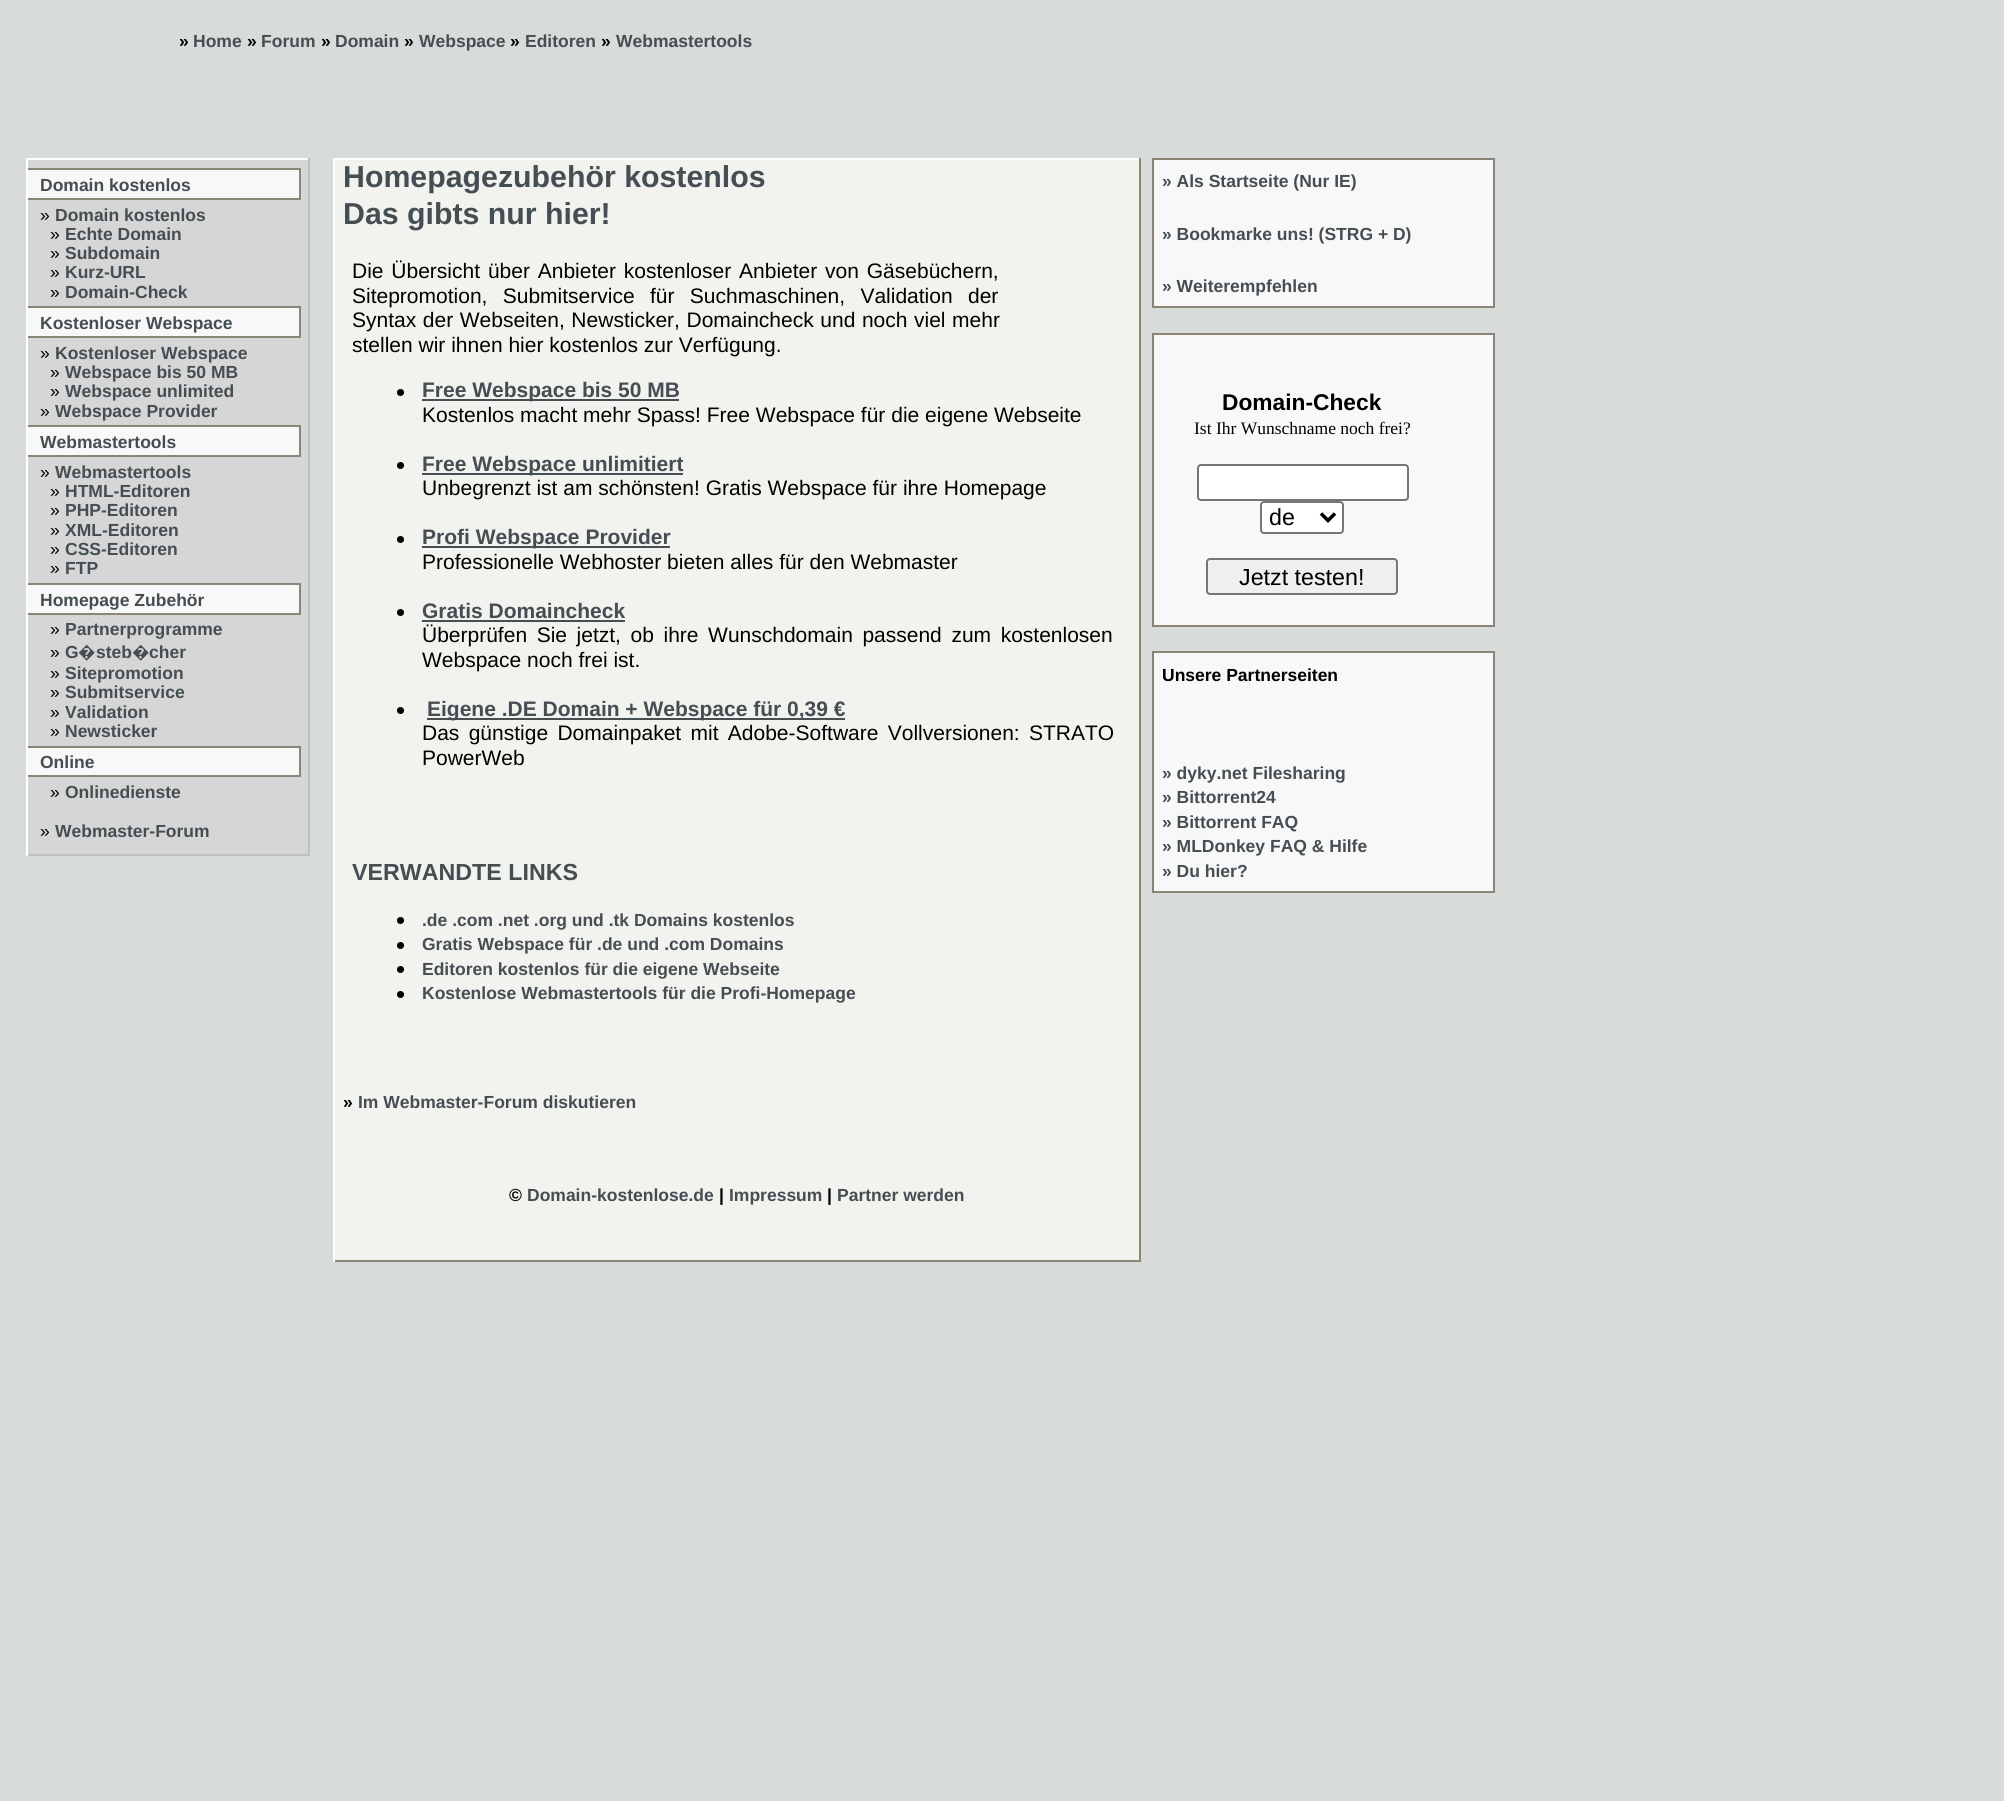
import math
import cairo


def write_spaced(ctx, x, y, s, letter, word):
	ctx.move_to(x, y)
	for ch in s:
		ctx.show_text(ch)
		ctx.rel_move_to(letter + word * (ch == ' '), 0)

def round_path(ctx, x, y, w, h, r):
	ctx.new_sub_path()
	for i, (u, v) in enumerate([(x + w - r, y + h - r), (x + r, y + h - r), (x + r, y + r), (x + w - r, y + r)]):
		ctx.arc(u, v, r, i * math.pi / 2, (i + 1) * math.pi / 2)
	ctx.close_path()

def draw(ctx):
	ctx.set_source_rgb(0.843, 0.859, 0.851)
	ctx.paint()
	ctx.select_font_face('Liberation Sans', cairo.FONT_SLANT_NORMAL, cairo.FONT_WEIGHT_BOLD)
	ctx.set_font_size(17.5)
	ctx.set_source_rgb(0, 0, 0)
	ctx.move_to(179, 47)
	ctx.show_text('»')
	ctx.set_source_rgb(0.271, 0.306, 0.325)
	ctx.move_to(193, 47)
	ctx.show_text('Home')
	ctx.set_source_rgb(0, 0, 0)
	ctx.move_to(247, 47)
	ctx.show_text('»')
	ctx.set_source_rgb(0.271, 0.306, 0.325)
	ctx.move_to(261, 47)
	ctx.show_text('Forum')
	ctx.set_source_rgb(0, 0, 0)
	ctx.move_to(321, 47)
	ctx.show_text('»')
	ctx.set_source_rgb(0.271, 0.306, 0.325)
	ctx.move_to(335, 47)
	ctx.show_text('Domain')
	ctx.set_source_rgb(0, 0, 0)
	ctx.move_to(404, 47)
	ctx.show_text('»')
	ctx.set_source_rgb(0.271, 0.306, 0.325)
	ctx.move_to(419, 47)
	ctx.show_text('Webspace')
	ctx.set_source_rgb(0, 0, 0)
	ctx.move_to(510, 47)
	ctx.show_text('»')
	ctx.set_source_rgb(0.271, 0.306, 0.325)
	ctx.move_to(525, 47)
	ctx.show_text('Editoren')
	ctx.set_source_rgb(0, 0, 0)
	ctx.move_to(601, 47)
	ctx.show_text('»')
	ctx.set_source_rgb(0.271, 0.306, 0.325)
	ctx.move_to(616, 47)
	ctx.show_text('Webmastertools')
	ctx.set_source_rgb(0.839, 0.839, 0.839)
	ctx.rectangle(28, 160, 280, 694)
	ctx.fill()
	ctx.set_source_rgb(1, 1, 1)
	ctx.rectangle(26, 158, 284, 2)
	ctx.fill()
	ctx.set_source_rgb(0.729, 0.757, 0.745)
	ctx.rectangle(308, 158, 2, 698)
	ctx.rectangle(26, 854, 284, 2)
	ctx.fill()
	ctx.set_source_rgb(1, 1, 1)
	ctx.rectangle(26, 158, 2, 698)
	ctx.fill()
	ctx.set_source_rgb(0.969, 0.969, 0.969)
	ctx.rectangle(28, 170, 271, 28)
	ctx.fill()
	ctx.set_source_rgb(0.545, 0.522, 0.463)
	ctx.rectangle(28, 168, 273, 2)
	ctx.rectangle(299, 168, 2, 32)
	ctx.rectangle(28, 198, 273, 2)
	ctx.fill()
	ctx.set_source_rgb(0.271, 0.306, 0.325)
	ctx.move_to(40, 191)
	ctx.show_text('Domain kostenlos')
	ctx.select_font_face('Liberation Sans')
	ctx.set_source_rgb(0, 0, 0)
	ctx.move_to(40, 221)
	ctx.show_text('»')
	ctx.select_font_face('Liberation Sans', cairo.FONT_SLANT_NORMAL, cairo.FONT_WEIGHT_BOLD)
	ctx.set_source_rgb(0.271, 0.306, 0.325)
	ctx.move_to(55, 221)
	ctx.show_text('Domain kostenlos')
	ctx.select_font_face('Liberation Sans')
	ctx.set_source_rgb(0, 0, 0)
	ctx.move_to(50, 240)
	ctx.show_text('»')
	ctx.select_font_face('Liberation Sans', cairo.FONT_SLANT_NORMAL, cairo.FONT_WEIGHT_BOLD)
	ctx.set_source_rgb(0.271, 0.306, 0.325)
	ctx.move_to(65, 240)
	ctx.show_text('Echte Domain')
	ctx.select_font_face('Liberation Sans')
	ctx.set_source_rgb(0, 0, 0)
	ctx.move_to(50, 259)
	ctx.show_text('»')
	ctx.select_font_face('Liberation Sans', cairo.FONT_SLANT_NORMAL, cairo.FONT_WEIGHT_BOLD)
	ctx.set_source_rgb(0.271, 0.306, 0.325)
	ctx.move_to(65, 259)
	ctx.show_text('Subdomain')
	ctx.select_font_face('Liberation Sans')
	ctx.set_source_rgb(0, 0, 0)
	ctx.move_to(50, 278)
	ctx.show_text('»')
	ctx.select_font_face('Liberation Sans', cairo.FONT_SLANT_NORMAL, cairo.FONT_WEIGHT_BOLD)
	ctx.set_source_rgb(0.271, 0.306, 0.325)
	ctx.move_to(65, 278)
	ctx.show_text('Kurz-URL')
	ctx.select_font_face('Liberation Sans')
	ctx.set_source_rgb(0, 0, 0)
	ctx.move_to(50, 298)
	ctx.show_text('»')
	ctx.select_font_face('Liberation Sans', cairo.FONT_SLANT_NORMAL, cairo.FONT_WEIGHT_BOLD)
	ctx.set_source_rgb(0.271, 0.306, 0.325)
	ctx.move_to(65, 298)
	ctx.show_text('Domain-Check')
	ctx.set_source_rgb(0.969, 0.969, 0.969)
	ctx.rectangle(28, 308, 271, 28)
	ctx.fill()
	ctx.set_source_rgb(0.545, 0.522, 0.463)
	ctx.rectangle(28, 306, 273, 2)
	ctx.rectangle(299, 306, 2, 32)
	ctx.rectangle(28, 336, 273, 2)
	ctx.fill()
	ctx.set_source_rgb(0.271, 0.306, 0.325)
	ctx.move_to(40, 329)
	ctx.show_text('Kostenloser Webspace')
	ctx.select_font_face('Liberation Sans')
	ctx.set_source_rgb(0, 0, 0)
	ctx.move_to(40, 359)
	ctx.show_text('»')
	ctx.select_font_face('Liberation Sans', cairo.FONT_SLANT_NORMAL, cairo.FONT_WEIGHT_BOLD)
	ctx.set_source_rgb(0.271, 0.306, 0.325)
	ctx.move_to(55, 359)
	ctx.show_text('Kostenloser Webspace')
	ctx.select_font_face('Liberation Sans')
	ctx.set_source_rgb(0, 0, 0)
	ctx.move_to(50, 378)
	ctx.show_text('»')
	ctx.select_font_face('Liberation Sans', cairo.FONT_SLANT_NORMAL, cairo.FONT_WEIGHT_BOLD)
	ctx.set_source_rgb(0.271, 0.306, 0.325)
	ctx.move_to(65, 378)
	ctx.show_text('Webspace bis 50 MB')
	ctx.select_font_face('Liberation Sans')
	ctx.set_source_rgb(0, 0, 0)
	ctx.move_to(50, 397)
	ctx.show_text('»')
	ctx.select_font_face('Liberation Sans', cairo.FONT_SLANT_NORMAL, cairo.FONT_WEIGHT_BOLD)
	ctx.set_source_rgb(0.271, 0.306, 0.325)
	ctx.move_to(65, 397)
	ctx.show_text('Webspace unlimited')
	ctx.select_font_face('Liberation Sans')
	ctx.set_source_rgb(0, 0, 0)
	ctx.move_to(40, 417)
	ctx.show_text('»')
	ctx.select_font_face('Liberation Sans', cairo.FONT_SLANT_NORMAL, cairo.FONT_WEIGHT_BOLD)
	ctx.set_source_rgb(0.271, 0.306, 0.325)
	ctx.move_to(55, 417)
	ctx.show_text('Webspace Provider')
	ctx.set_source_rgb(0.969, 0.969, 0.969)
	ctx.rectangle(28, 427, 271, 28)
	ctx.fill()
	ctx.set_source_rgb(0.545, 0.522, 0.463)
	ctx.rectangle(28, 425, 273, 2)
	ctx.rectangle(299, 425, 2, 32)
	ctx.rectangle(28, 455, 273, 2)
	ctx.fill()
	ctx.set_source_rgb(0.271, 0.306, 0.325)
	ctx.move_to(40, 448)
	ctx.show_text('Webmastertools')
	ctx.select_font_face('Liberation Sans')
	ctx.set_source_rgb(0, 0, 0)
	ctx.move_to(40, 478)
	ctx.show_text('»')
	ctx.select_font_face('Liberation Sans', cairo.FONT_SLANT_NORMAL, cairo.FONT_WEIGHT_BOLD)
	ctx.set_source_rgb(0.271, 0.306, 0.325)
	ctx.move_to(55, 478)
	ctx.show_text('Webmastertools')
	ctx.select_font_face('Liberation Sans')
	ctx.set_source_rgb(0, 0, 0)
	ctx.move_to(50, 497)
	ctx.show_text('»')
	ctx.select_font_face('Liberation Sans', cairo.FONT_SLANT_NORMAL, cairo.FONT_WEIGHT_BOLD)
	ctx.set_source_rgb(0.271, 0.306, 0.325)
	ctx.move_to(65, 497)
	ctx.show_text('HTML-Editoren')
	ctx.select_font_face('Liberation Sans')
	ctx.set_source_rgb(0, 0, 0)
	ctx.move_to(50, 516)
	ctx.show_text('»')
	ctx.select_font_face('Liberation Sans', cairo.FONT_SLANT_NORMAL, cairo.FONT_WEIGHT_BOLD)
	ctx.set_source_rgb(0.271, 0.306, 0.325)
	ctx.move_to(65, 516)
	ctx.show_text('PHP-Editoren')
	ctx.select_font_face('Liberation Sans')
	ctx.set_source_rgb(0, 0, 0)
	ctx.move_to(50, 536)
	ctx.show_text('»')
	ctx.select_font_face('Liberation Sans', cairo.FONT_SLANT_NORMAL, cairo.FONT_WEIGHT_BOLD)
	ctx.set_source_rgb(0.271, 0.306, 0.325)
	ctx.move_to(65, 536)
	ctx.show_text('XML-Editoren')
	ctx.select_font_face('Liberation Sans')
	ctx.set_source_rgb(0, 0, 0)
	ctx.move_to(50, 555)
	ctx.show_text('»')
	ctx.select_font_face('Liberation Sans', cairo.FONT_SLANT_NORMAL, cairo.FONT_WEIGHT_BOLD)
	ctx.set_source_rgb(0.271, 0.306, 0.325)
	ctx.move_to(65, 555)
	ctx.show_text('CSS-Editoren')
	ctx.select_font_face('Liberation Sans')
	ctx.set_source_rgb(0, 0, 0)
	ctx.move_to(50, 574)
	ctx.show_text('»')
	ctx.select_font_face('Liberation Sans', cairo.FONT_SLANT_NORMAL, cairo.FONT_WEIGHT_BOLD)
	ctx.set_source_rgb(0.271, 0.306, 0.325)
	ctx.move_to(65, 574)
	ctx.show_text('FTP')
	ctx.set_source_rgb(0.969, 0.969, 0.969)
	ctx.rectangle(28, 585, 271, 28)
	ctx.fill()
	ctx.set_source_rgb(0.545, 0.522, 0.463)
	ctx.rectangle(28, 583, 273, 2)
	ctx.rectangle(299, 583, 2, 31)
	ctx.rectangle(28, 613, 273, 2)
	ctx.fill()
	ctx.set_source_rgb(0.271, 0.306, 0.325)
	ctx.move_to(40, 606)
	ctx.show_text('Homepage Zubehör')
	ctx.select_font_face('Liberation Sans')
	ctx.set_source_rgb(0, 0, 0)
	ctx.move_to(50, 635)
	ctx.show_text('»')
	ctx.select_font_face('Liberation Sans', cairo.FONT_SLANT_NORMAL, cairo.FONT_WEIGHT_BOLD)
	ctx.set_source_rgb(0.271, 0.306, 0.325)
	ctx.move_to(65, 635)
	ctx.show_text('Partnerprogramme')
	ctx.select_font_face('Liberation Sans')
	ctx.set_source_rgb(0, 0, 0)
	ctx.move_to(50, 658)
	ctx.show_text('»')
	ctx.select_font_face('Liberation Sans', cairo.FONT_SLANT_NORMAL, cairo.FONT_WEIGHT_BOLD)
	ctx.set_source_rgb(0.271, 0.306, 0.325)
	ctx.move_to(65, 658)
	ctx.show_text('G')
	ctx.select_font_face('Noto Sans', cairo.FONT_SLANT_NORMAL, cairo.FONT_WEIGHT_BOLD)
	ctx.move_to(78, 658)
	ctx.show_text('�')
	ctx.select_font_face('Liberation Sans', cairo.FONT_SLANT_NORMAL, cairo.FONT_WEIGHT_BOLD)
	ctx.move_to(96, 658)
	ctx.show_text('steb')
	ctx.select_font_face('Noto Sans', cairo.FONT_SLANT_NORMAL, cairo.FONT_WEIGHT_BOLD)
	ctx.move_to(132, 658)
	ctx.show_text('�')
	ctx.select_font_face('Liberation Sans', cairo.FONT_SLANT_NORMAL, cairo.FONT_WEIGHT_BOLD)
	ctx.move_to(149, 658)
	ctx.show_text('cher')
	ctx.select_font_face('Liberation Sans')
	ctx.set_source_rgb(0, 0, 0)
	ctx.move_to(50, 679)
	ctx.show_text('»')
	ctx.select_font_face('Liberation Sans', cairo.FONT_SLANT_NORMAL, cairo.FONT_WEIGHT_BOLD)
	ctx.set_source_rgb(0.271, 0.306, 0.325)
	ctx.move_to(65, 679)
	ctx.show_text('Sitepromotion')
	ctx.select_font_face('Liberation Sans')
	ctx.set_source_rgb(0, 0, 0)
	ctx.move_to(50, 698)
	ctx.show_text('»')
	ctx.select_font_face('Liberation Sans', cairo.FONT_SLANT_NORMAL, cairo.FONT_WEIGHT_BOLD)
	ctx.set_source_rgb(0.271, 0.306, 0.325)
	ctx.move_to(65, 698)
	ctx.show_text('Submitservice')
	ctx.select_font_face('Liberation Sans')
	ctx.set_source_rgb(0, 0, 0)
	ctx.move_to(50, 718)
	ctx.show_text('»')
	ctx.select_font_face('Liberation Sans', cairo.FONT_SLANT_NORMAL, cairo.FONT_WEIGHT_BOLD)
	ctx.set_source_rgb(0.271, 0.306, 0.325)
	ctx.move_to(65, 718)
	ctx.show_text('Validation')
	ctx.select_font_face('Liberation Sans')
	ctx.set_source_rgb(0, 0, 0)
	ctx.move_to(50, 737)
	ctx.show_text('»')
	ctx.select_font_face('Liberation Sans', cairo.FONT_SLANT_NORMAL, cairo.FONT_WEIGHT_BOLD)
	ctx.set_source_rgb(0.271, 0.306, 0.325)
	ctx.move_to(65, 737)
	ctx.show_text('Newsticker')
	ctx.set_source_rgb(0.969, 0.969, 0.969)
	ctx.rectangle(28, 748, 271, 27)
	ctx.fill()
	ctx.set_source_rgb(0.545, 0.522, 0.463)
	ctx.rectangle(28, 746, 273, 2)
	ctx.rectangle(299, 746, 2, 31)
	ctx.rectangle(28, 775, 273, 2)
	ctx.fill()
	ctx.set_source_rgb(0.271, 0.306, 0.325)
	ctx.move_to(40, 768)
	ctx.show_text('Online')
	ctx.select_font_face('Liberation Sans')
	ctx.set_source_rgb(0, 0, 0)
	ctx.move_to(50, 798)
	ctx.show_text('»')
	ctx.select_font_face('Liberation Sans', cairo.FONT_SLANT_NORMAL, cairo.FONT_WEIGHT_BOLD)
	ctx.set_source_rgb(0.271, 0.306, 0.325)
	ctx.move_to(65, 798)
	ctx.show_text('Onlinedienste')
	ctx.select_font_face('Liberation Sans')
	ctx.set_source_rgb(0, 0, 0)
	ctx.move_to(40, 837)
	ctx.show_text('»')
	ctx.select_font_face('Liberation Sans', cairo.FONT_SLANT_NORMAL, cairo.FONT_WEIGHT_BOLD)
	ctx.set_source_rgb(0.271, 0.306, 0.325)
	ctx.move_to(55, 837)
	ctx.show_text('Webmaster-Forum')
	ctx.set_source_rgb(0.949, 0.949, 0.933)
	ctx.rectangle(335, 160, 804, 1100)
	ctx.fill()
	ctx.set_source_rgb(1, 1, 1)
	ctx.rectangle(333, 158, 808, 2)
	ctx.fill()
	ctx.set_source_rgb(0.545, 0.522, 0.463)
	ctx.rectangle(1139, 158, 2, 1104)
	ctx.rectangle(333, 1260, 808, 2)
	ctx.fill()
	ctx.set_source_rgb(1, 1, 1)
	ctx.rectangle(333, 158, 2, 1104)
	ctx.fill()
	ctx.set_font_size(30.3)
	ctx.set_source_rgb(0.271, 0.306, 0.325)
	ctx.move_to(343, 187)
	ctx.show_text('Homepagezubehör kostenlos')
	ctx.move_to(343, 224)
	ctx.show_text('Das gibts nur hier!')
	ctx.select_font_face('Liberation Sans')
	ctx.set_font_size(21)
	ctx.set_source_rgb(0, 0, 0)
	write_spaced(ctx, 352, 278, 'Die Übersicht über Anbieter kostenloser Anbieter von Gäsebüchern,', 0, 2)
	write_spaced(ctx, 352, 303, 'Sitepromotion, Submitservice für Suchmaschinen, Validation der', 0, 9.5)
	write_spaced(ctx, 352, 327, 'Syntax der Webseiten, Newsticker, Domaincheck und noch viel mehr', 0, 0.75)
	ctx.move_to(352, 352)
	ctx.show_text('stellen wir ihnen hier kostenlos zur Verfügung.')
	ctx.new_path()
	ctx.arc(400.5, 392.5, 3.5, 0, 2 * math.pi)
	ctx.fill()
	ctx.set_source_rgb(0.271, 0.306, 0.325)
	ctx.rectangle(422, 399, 257, 2)
	ctx.fill()
	ctx.select_font_face('Liberation Sans', cairo.FONT_SLANT_NORMAL, cairo.FONT_WEIGHT_BOLD)
	ctx.move_to(422, 397)
	ctx.show_text('Free Webspace bis 50 MB')
	ctx.select_font_face('Liberation Sans')
	ctx.set_source_rgb(0, 0, 0)
	ctx.move_to(422, 422)
	ctx.show_text('Kostenlos macht mehr Spass! Free Webspace für die eigene Webseite')
	ctx.new_path()
	ctx.arc(400.5, 465.5, 3.5, 0, 2 * math.pi)
	ctx.fill()
	ctx.set_source_rgb(0.271, 0.306, 0.325)
	ctx.rectangle(422, 473, 261, 2)
	ctx.fill()
	ctx.select_font_face('Liberation Sans', cairo.FONT_SLANT_NORMAL, cairo.FONT_WEIGHT_BOLD)
	ctx.move_to(422, 471)
	ctx.show_text('Free Webspace unlimitiert')
	ctx.select_font_face('Liberation Sans')
	ctx.set_source_rgb(0, 0, 0)
	ctx.move_to(422, 495)
	ctx.show_text('Unbegrenzt ist am schönsten! Gratis Webspace für ihre Homepage')
	ctx.new_path()
	ctx.arc(400.5, 539.5, 3.5, 0, 2 * math.pi)
	ctx.fill()
	ctx.set_source_rgb(0.271, 0.306, 0.325)
	ctx.rectangle(422, 546, 248, 2)
	ctx.fill()
	ctx.select_font_face('Liberation Sans', cairo.FONT_SLANT_NORMAL, cairo.FONT_WEIGHT_BOLD)
	ctx.move_to(422, 544)
	ctx.show_text('Profi Webspace Provider')
	ctx.select_font_face('Liberation Sans')
	ctx.set_source_rgb(0, 0, 0)
	ctx.move_to(422, 569)
	ctx.show_text('Professionelle Webhoster bieten alles für den Webmaster')
	ctx.new_path()
	ctx.arc(400.5, 612.5, 3.5, 0, 2 * math.pi)
	ctx.fill()
	ctx.select_font_face('Liberation Sans', cairo.FONT_SLANT_NORMAL, cairo.FONT_WEIGHT_BOLD)
	ctx.set_source_rgb(0.271, 0.306, 0.325)
	ctx.move_to(422, 618)
	ctx.show_text('Gratis Domaincheck')
	ctx.rectangle(422, 620, 203, 2)
	ctx.fill()
	ctx.select_font_face('Liberation Sans')
	ctx.set_source_rgb(0, 0, 0)
	write_spaced(ctx, 422, 642, 'Überprüfen Sie jetzt, ob ihre Wunschdomain passend zum kostenlosen', 0, 3.75)
	ctx.move_to(422, 667)
	ctx.show_text('Webspace noch frei ist.')
	ctx.new_path()
	ctx.arc(400.5, 710.5, 3.5, 0, 2 * math.pi)
	ctx.fill()
	ctx.set_source_rgb(0.271, 0.306, 0.325)
	ctx.rectangle(427, 718, 418, 2)
	ctx.fill()
	ctx.select_font_face('Liberation Sans', cairo.FONT_SLANT_NORMAL, cairo.FONT_WEIGHT_BOLD)
	ctx.move_to(427, 716)
	ctx.show_text('Eigene .DE Domain + Webspace für 0,39 €')
	ctx.select_font_face('Liberation Sans')
	ctx.set_source_rgb(0, 0, 0)
	write_spaced(ctx, 422, 740, 'Das günstige Domainpaket mit Adobe-Software Vollversionen: STRATO', 0, 3.5)
	ctx.move_to(422, 765)
	ctx.show_text('PowerWeb')
	ctx.select_font_face('Liberation Sans', cairo.FONT_SLANT_NORMAL, cairo.FONT_WEIGHT_BOLD)
	ctx.set_font_size(23.25)
	ctx.set_source_rgb(0.271, 0.306, 0.325)
	ctx.move_to(352, 880)
	ctx.show_text('VERWANDTE LINKS')
	ctx.set_source_rgb(0, 0, 0)
	ctx.new_path()
	ctx.arc(400.5, 920.5, 3.5, 0, 2 * math.pi)
	ctx.fill()
	ctx.set_font_size(17.5)
	ctx.set_source_rgb(0.271, 0.306, 0.325)
	ctx.move_to(422, 926)
	ctx.show_text('.de .com .net .org und .tk Domains kostenlos')
	ctx.set_source_rgb(0, 0, 0)
	ctx.new_path()
	ctx.arc(400.5, 945.5, 3.5, 0, 2 * math.pi)
	ctx.fill()
	ctx.set_source_rgb(0.271, 0.306, 0.325)
	ctx.move_to(422, 950)
	ctx.show_text('Gratis Webspace für .de und .com Domains')
	ctx.set_source_rgb(0, 0, 0)
	ctx.new_path()
	ctx.arc(400.5, 969.5, 3.5, 0, 2 * math.pi)
	ctx.fill()
	ctx.set_source_rgb(0.271, 0.306, 0.325)
	ctx.move_to(422, 975)
	ctx.show_text('Editoren kostenlos für die eigene Webseite')
	ctx.set_source_rgb(0, 0, 0)
	ctx.new_path()
	ctx.arc(400.5, 994.5, 3.5, 0, 2 * math.pi)
	ctx.fill()
	ctx.set_source_rgb(0.271, 0.306, 0.325)
	ctx.move_to(422, 999)
	ctx.show_text('Kostenlose Webmastertools für die Profi-Homepage')
	ctx.set_source_rgb(0, 0, 0)
	ctx.move_to(343, 1108)
	ctx.show_text('»')
	ctx.set_source_rgb(0.271, 0.306, 0.325)
	ctx.move_to(358, 1108)
	ctx.show_text('Im Webmaster-Forum diskutieren')
	ctx.set_source_rgb(0, 0, 0)
	ctx.move_to(509, 1201)
	ctx.show_text('©')
	ctx.set_source_rgb(0.271, 0.306, 0.325)
	ctx.move_to(527, 1201)
	ctx.show_text('Domain-kostenlose.de')
	ctx.set_source_rgb(0, 0, 0)
	ctx.move_to(719, 1201)
	ctx.show_text('|')
	ctx.set_source_rgb(0.271, 0.306, 0.325)
	ctx.move_to(729, 1201)
	ctx.show_text('Impressum')
	ctx.set_source_rgb(0, 0, 0)
	ctx.move_to(827, 1201)
	ctx.show_text('|')
	ctx.set_source_rgb(0.271, 0.306, 0.325)
	ctx.move_to(837, 1201)
	ctx.show_text('Partner werden')
	ctx.set_source_rgb(0.969, 0.969, 0.969)
	ctx.rectangle(1153, 159, 341, 148)
	ctx.fill_preserve()
	ctx.set_source_rgb(0.545, 0.522, 0.463)
	ctx.stroke()
	ctx.set_source_rgb(0.271, 0.306, 0.325)
	for x, y, s in [
		(1162, 187, '» Als Startseite (Nur IE)'),
		(1162, 240, '» Bookmarke uns! (STRG + D)'),
		(1162, 292, '» Weiterempfehlen'),
	]:
		ctx.move_to(x, y)
		ctx.show_text(s)
	ctx.set_source_rgb(0.969, 0.969, 0.969)
	ctx.rectangle(1153, 334, 341, 292)
	ctx.fill_preserve()
	ctx.set_source_rgb(0.545, 0.522, 0.463)
	ctx.stroke()
	ctx.set_font_size(22.75)
	ctx.set_source_rgb(0, 0, 0)
	ctx.move_to(1222, 410)
	ctx.show_text('Domain-Check')
	ctx.select_font_face('Liberation Serif')
	ctx.set_font_size(17.5)
	ctx.move_to(1194, 434)
	ctx.show_text('Ist Ihr Wunschname noch frei?')
	ctx.set_source_rgb(1, 1, 1)
	round_path(ctx, 1198, 465, 210, 35, 3)
	ctx.fill_preserve()
	ctx.set_source_rgb(0.463, 0.463, 0.463)
	ctx.stroke()
	ctx.set_source_rgb(1, 1, 1)
	round_path(ctx, 1261, 502, 82, 31, 3)
	ctx.fill_preserve()
	ctx.set_source_rgb(0.463, 0.463, 0.463)
	ctx.stroke()
	ctx.new_path()
	ctx.move_to(1321, 513.5)
	ctx.line_to(1328, 520.5)
	ctx.line_to(1335, 513.5)
	ctx.set_source_rgb(0, 0, 0)
	ctx.set_line_width(3.5)
	ctx.stroke()
	ctx.select_font_face('Liberation Sans')
	ctx.set_font_size(23.25)
	ctx.move_to(1269, 525)
	ctx.show_text('de')
	ctx.set_source_rgb(0.937, 0.937, 0.937)
	round_path(ctx, 1207, 559, 190, 35, 3)
	ctx.fill_preserve()
	ctx.set_source_rgb(0.463, 0.463, 0.463)
	ctx.set_line_width(2)
	ctx.stroke()
	ctx.set_source_rgb(0, 0, 0)
	ctx.move_to(1239, 585)
	ctx.show_text('Jetzt testen!')
	ctx.set_source_rgb(0.969, 0.969, 0.969)
	ctx.rectangle(1153, 652, 341, 240)
	ctx.fill_preserve()
	ctx.set_source_rgb(0.545, 0.522, 0.463)
	ctx.stroke()
	ctx.select_font_face('Liberation Sans', cairo.FONT_SLANT_NORMAL, cairo.FONT_WEIGHT_BOLD)
	ctx.set_font_size(17.5)
	ctx.set_source_rgb(0, 0, 0)
	ctx.move_to(1162, 681)
	ctx.show_text('Unsere Partnerseiten')
	ctx.set_source_rgb(0.271, 0.306, 0.325)
	for x, y, s in [
		(1162, 779, '» dyky.net Filesharing'),
		(1162, 803, '» Bittorrent24'),
		(1162, 828, '» Bittorrent FAQ'),
		(1162, 852, '» MLDonkey FAQ & Hilfe'),
		(1162, 877, '» Du hier?'),
	]:
		ctx.move_to(x, y)
		ctx.show_text(s)


surface = cairo.ImageSurface(cairo.FORMAT_RGB24, 2004, 1801)
ctx = cairo.Context(surface)
options = cairo.FontOptions()
options.set_hint_metrics(cairo.HINT_METRICS_OFF)
options.set_hint_style(cairo.HINT_STYLE_NONE)
ctx.set_font_options(options)
ctx.set_miter_limit(4)
draw(ctx)
surface.write_to_png('image.png')
